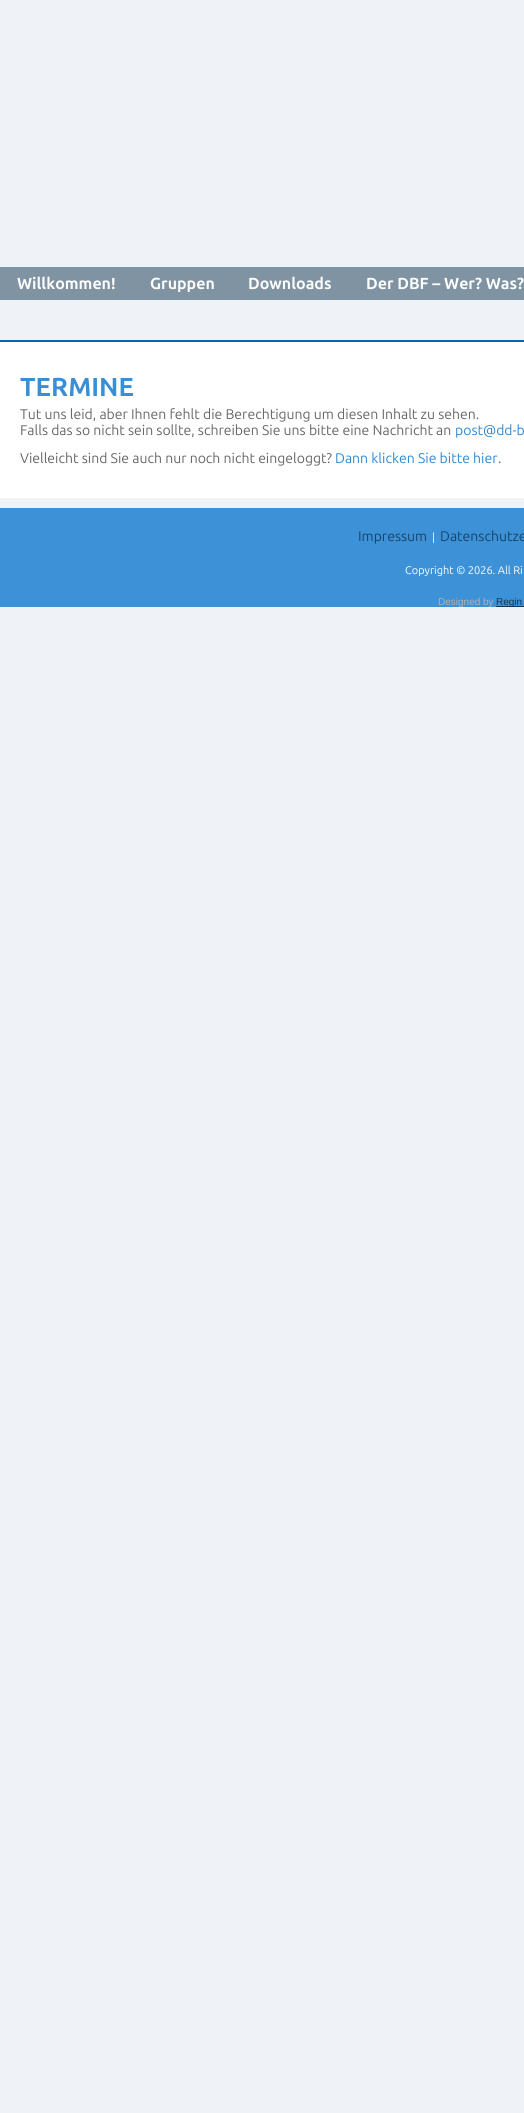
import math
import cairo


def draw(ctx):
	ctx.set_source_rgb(0.937, 0.949, 0.961)
	ctx.paint()
	ctx.set_source_rgb(0.502, 0.576, 0.639)
	ctx.rectangle(0, 267, 524, 33)
	ctx.fill()
	ctx.select_font_face('Ubuntu', cairo.FONT_SLANT_NORMAL, cairo.FONT_WEIGHT_BOLD)
	ctx.set_font_size(16)
	ctx.set_source_rgb(1, 1, 1)
	for x, y, s in [
		(17, 289, 'Willkommen!'),
		(150, 289, 'Gruppen'),
		(248, 289, 'Downloads'),
		(366, 289, 'Der DBF – Wer? Was?'),
	]:
		ctx.move_to(x, y)
		ctx.show_text(s)
	ctx.rectangle(0, 342, 524, 156)
	ctx.fill()
	ctx.set_source_rgb(0.008, 0.408, 0.694)
	ctx.rectangle(0, 340, 524, 2)
	ctx.fill()
	ctx.set_font_size(26)
	ctx.set_source_rgb(0.224, 0.561, 0.835)
	ctx.move_to(20, 396)
	ctx.show_text('TERMINE')
	ctx.select_font_face('Ubuntu')
	ctx.set_font_size(14)
	ctx.set_source_rgb(0.4, 0.4, 0.4)
	ctx.move_to(20, 419)
	ctx.show_text('Tut uns leid, aber Ihnen fehlt die Berechtigung um diesen Inhalt zu sehen.')
	ctx.move_to(20, 435)
	ctx.show_text('Falls das so nicht sein sollte, schreiben Sie uns bitte eine Nachricht an')
	ctx.set_source_rgb(0.176, 0.533, 0.824)
	ctx.move_to(455, 435)
	ctx.show_text('post@dd-b')
	ctx.set_source_rgb(0.4, 0.4, 0.4)
	ctx.move_to(20, 463)
	ctx.show_text('Vielleicht sind Sie auch nur noch nicht eingeloggt?')
	ctx.set_source_rgb(0.176, 0.533, 0.824)
	ctx.move_to(335, 463)
	ctx.show_text('Dann klicken Sie bitte hier')
	ctx.set_source_rgb(0.4, 0.4, 0.4)
	ctx.move_to(498, 463)
	ctx.show_text('.')
	ctx.set_source_rgb(0.239, 0.569, 0.839)
	ctx.rectangle(0, 508, 524, 99)
	ctx.fill()
	ctx.set_source_rgb(0.086, 0.267, 0.412)
	ctx.move_to(358, 541)
	ctx.show_text('Impressum')
	ctx.set_font_size(11)
	ctx.set_source_rgb(1, 1, 1)
	ctx.move_to(432, 541)
	ctx.show_text('|')
	ctx.set_font_size(14)
	ctx.set_source_rgb(0.086, 0.267, 0.412)
	ctx.move_to(440, 541)
	ctx.show_text('Datenschutze')
	ctx.set_font_size(11)
	ctx.set_source_rgb(1, 1, 1)
	ctx.move_to(405, 574)
	ctx.show_text('Copyright © 2026. All Ri')
	ctx.select_font_face('Liberation Sans')
	ctx.set_font_size(10)
	ctx.set_source_rgb(0.698, 0.698, 0.698)
	ctx.move_to(438, 605)
	ctx.show_text('Designed by')
	ctx.set_source_rgb(0.071, 0.212, 0.329)
	ctx.rectangle(496, 606, 28, 1)
	ctx.fill()
	ctx.move_to(496, 605)
	ctx.show_text('Regin')


surface = cairo.ImageSurface(cairo.FORMAT_RGB24, 524, 2113)
ctx = cairo.Context(surface)
options = cairo.FontOptions()
options.set_hint_metrics(cairo.HINT_METRICS_OFF)
options.set_hint_style(cairo.HINT_STYLE_NONE)
ctx.set_font_options(options)
ctx.set_miter_limit(4)
draw(ctx)
surface.write_to_png('image.png')
